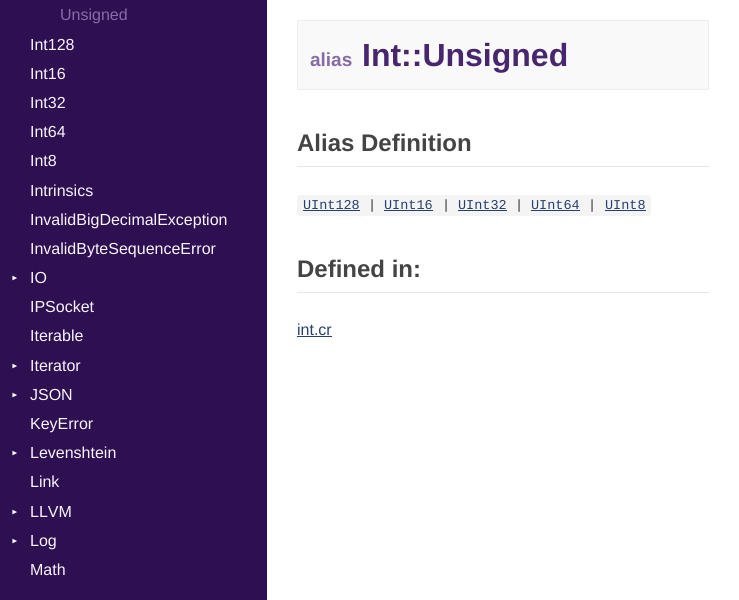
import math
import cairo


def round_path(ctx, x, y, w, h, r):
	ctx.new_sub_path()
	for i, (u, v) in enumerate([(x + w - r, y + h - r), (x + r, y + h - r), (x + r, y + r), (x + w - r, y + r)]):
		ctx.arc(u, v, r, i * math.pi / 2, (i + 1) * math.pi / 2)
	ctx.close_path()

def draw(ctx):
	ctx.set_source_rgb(1, 1, 1)
	ctx.paint()
	ctx.set_source_rgb(0.18, 0.063, 0.322)
	ctx.rectangle(0, 0, 267, 600)
	ctx.fill()
	ctx.select_font_face('Liberation Sans')
	ctx.set_font_size(16)
	ctx.set_source_rgb(0.525, 0.42, 0.651)
	ctx.move_to(60, 20)
	ctx.show_text('Unsigned')
	ctx.set_source_rgb(0.973, 0.957, 0.992)
	for x, y, s in [
		(30, 50, 'Int128'),
		(30, 79, 'Int16'),
		(30, 108, 'Int32'),
		(30, 137, 'Int64'),
		(30, 166, 'Int8'),
		(30, 196, 'Intrinsics'),
		(30, 225, 'InvalidBigDecimalException'),
		(30, 254, 'InvalidByteSequenceError'),
	]:
		ctx.move_to(x, y)
		ctx.show_text(s)
	ctx.set_font_size(8)
	ctx.set_source_rgb(1, 1, 1)
	ctx.save()
	ctx.translate(17, 282)
	ctx.rotate(-90 * math.pi / 180)
	ctx.move_to(0, 0)
	ctx.show_text('▼')
	ctx.restore()
	ctx.set_font_size(16)
	ctx.set_source_rgb(0.973, 0.957, 0.992)
	for x, y, s in [
		(30, 283, 'IO'),
		(30, 312, 'IPSocket'),
		(30, 341, 'Iterable'),
	]:
		ctx.move_to(x, y)
		ctx.show_text(s)
	ctx.set_font_size(8)
	ctx.set_source_rgb(1, 1, 1)
	ctx.save()
	ctx.translate(17, 370)
	ctx.rotate(-90 * math.pi / 180)
	ctx.move_to(0, 0)
	ctx.show_text('▼')
	ctx.restore()
	ctx.set_font_size(16)
	ctx.set_source_rgb(0.973, 0.957, 0.992)
	ctx.move_to(30, 371)
	ctx.show_text('Iterator')
	ctx.set_font_size(8)
	ctx.set_source_rgb(1, 1, 1)
	ctx.save()
	ctx.translate(17, 399)
	ctx.rotate(-90 * math.pi / 180)
	ctx.move_to(0, 0)
	ctx.show_text('▼')
	ctx.restore()
	ctx.set_font_size(16)
	ctx.set_source_rgb(0.973, 0.957, 0.992)
	ctx.move_to(30, 400)
	ctx.show_text('JSON')
	ctx.move_to(30, 429)
	ctx.show_text('KeyError')
	ctx.set_font_size(8)
	ctx.set_source_rgb(1, 1, 1)
	ctx.save()
	ctx.translate(17, 457)
	ctx.rotate(-90 * math.pi / 180)
	ctx.move_to(0, 0)
	ctx.show_text('▼')
	ctx.restore()
	ctx.set_font_size(16)
	ctx.set_source_rgb(0.973, 0.957, 0.992)
	ctx.move_to(30, 458)
	ctx.show_text('Levenshtein')
	ctx.move_to(30, 487)
	ctx.show_text('Link')
	ctx.set_font_size(8)
	ctx.set_source_rgb(1, 1, 1)
	ctx.save()
	ctx.translate(17, 516)
	ctx.rotate(-90 * math.pi / 180)
	ctx.move_to(0, 0)
	ctx.show_text('▼')
	ctx.restore()
	ctx.set_font_size(16)
	ctx.set_source_rgb(0.973, 0.957, 0.992)
	ctx.move_to(30, 517)
	ctx.show_text('LLVM')
	ctx.set_font_size(8)
	ctx.set_source_rgb(1, 1, 1)
	ctx.save()
	ctx.translate(17, 545)
	ctx.rotate(-90 * math.pi / 180)
	ctx.move_to(0, 0)
	ctx.show_text('▼')
	ctx.restore()
	ctx.set_font_size(16)
	ctx.set_source_rgb(0.973, 0.957, 0.992)
	ctx.move_to(30, 546)
	ctx.show_text('Log')
	ctx.move_to(30, 575)
	ctx.show_text('Math')
	ctx.set_source_rgb(0.973, 0.973, 0.973)
	round_path(ctx, 297.5, 20.5, 411, 69, 1.5)
	ctx.fill_preserve()
	ctx.set_source_rgb(0.922, 0.922, 0.922)
	ctx.set_line_width(1)
	ctx.stroke()
	ctx.select_font_face('Liberation Sans', cairo.FONT_SLANT_NORMAL, cairo.FONT_WEIGHT_BOLD)
	ctx.set_font_size(19)
	ctx.set_source_rgb(0.525, 0.42, 0.651)
	ctx.move_to(310, 66)
	ctx.show_text('alias')
	ctx.set_font_size(32)
	ctx.set_source_rgb(0.278, 0.149, 0.431)
	ctx.move_to(362, 66)
	ctx.show_text('Int::Unsigned')
	ctx.set_source_rgb(0.902, 0.902, 0.902)
	ctx.rectangle(297, 166, 412, 1)
	ctx.fill()
	ctx.set_font_size(24)
	ctx.set_source_rgb(0.267, 0.267, 0.267)
	ctx.move_to(297, 151)
	ctx.show_text('Alias Definition')
	ctx.set_source_rgb(0.957, 0.957, 0.957)
	ctx.new_path()
	ctx.move_to(300, 195)
	ctx.line_to(360, 195)
	ctx.line_to(360, 216)
	ctx.line_to(300, 216)
	ctx.curve_to(298.5, 216, 297, 214.5, 297, 213)
	ctx.line_to(297, 198)
	ctx.curve_to(297, 196.5, 298.5, 195, 300, 195)
	ctx.close_path()
	ctx.fill()
	ctx.select_font_face('Liberation Mono')
	ctx.set_font_size(13.5)
	ctx.set_source_rgb(0.149, 0.247, 0.424)
	ctx.move_to(303, 209)
	ctx.show_text('UInt128')
	ctx.rectangle(303, 210, 57, 1)
	ctx.fill()
	ctx.set_source_rgb(0.957, 0.957, 0.957)
	ctx.rectangle(360, 195, 245, 21)
	ctx.fill()
	ctx.set_source_rgb(0.2, 0.2, 0.2)
	ctx.move_to(368, 209)
	ctx.show_text('|')
	ctx.set_source_rgb(0.149, 0.247, 0.424)
	ctx.move_to(384, 209)
	ctx.show_text('UInt16')
	ctx.rectangle(384, 210, 49, 1)
	ctx.fill()
	ctx.set_source_rgb(0.2, 0.2, 0.2)
	ctx.move_to(442, 209)
	ctx.show_text('|')
	ctx.set_source_rgb(0.149, 0.247, 0.424)
	ctx.move_to(458, 209)
	ctx.show_text('UInt32')
	ctx.rectangle(458, 210, 49, 1)
	ctx.fill()
	ctx.set_source_rgb(0.2, 0.2, 0.2)
	ctx.move_to(515, 209)
	ctx.show_text('|')
	ctx.set_source_rgb(0.149, 0.247, 0.424)
	ctx.move_to(531, 209)
	ctx.show_text('UInt64')
	ctx.rectangle(531, 210, 49, 1)
	ctx.fill()
	ctx.set_source_rgb(0.2, 0.2, 0.2)
	ctx.move_to(588, 209)
	ctx.show_text('|')
	ctx.set_source_rgb(0.957, 0.957, 0.957)
	ctx.new_path()
	ctx.move_to(605, 195)
	ctx.line_to(648, 195)
	ctx.curve_to(649.5, 195, 651, 196.5, 651, 198)
	ctx.line_to(651, 213)
	ctx.curve_to(651, 214.5, 649.5, 216, 648, 216)
	ctx.line_to(605, 216)
	ctx.close_path()
	ctx.fill()
	ctx.set_source_rgb(0.149, 0.247, 0.424)
	ctx.move_to(605, 209)
	ctx.show_text('UInt8')
	ctx.rectangle(605, 210, 41, 1)
	ctx.fill()
	ctx.set_source_rgb(0.902, 0.902, 0.902)
	ctx.rectangle(297, 292, 412, 1)
	ctx.fill()
	ctx.select_font_face('Liberation Sans', cairo.FONT_SLANT_NORMAL, cairo.FONT_WEIGHT_BOLD)
	ctx.set_font_size(24)
	ctx.set_source_rgb(0.267, 0.267, 0.267)
	ctx.move_to(297, 277)
	ctx.show_text('Defined in:')
	ctx.select_font_face('Liberation Sans')
	ctx.set_font_size(16)
	ctx.set_source_rgb(0.149, 0.247, 0.424)
	ctx.move_to(297, 335)
	ctx.show_text('int.cr')
	ctx.rectangle(297, 336, 35, 1)
	ctx.fill()


surface = cairo.ImageSurface(cairo.FORMAT_RGB24, 739, 600)
ctx = cairo.Context(surface)
options = cairo.FontOptions()
options.set_hint_metrics(cairo.HINT_METRICS_OFF)
options.set_hint_style(cairo.HINT_STYLE_NONE)
ctx.set_font_options(options)
ctx.set_miter_limit(4)
draw(ctx)
surface.write_to_png('image.png')
